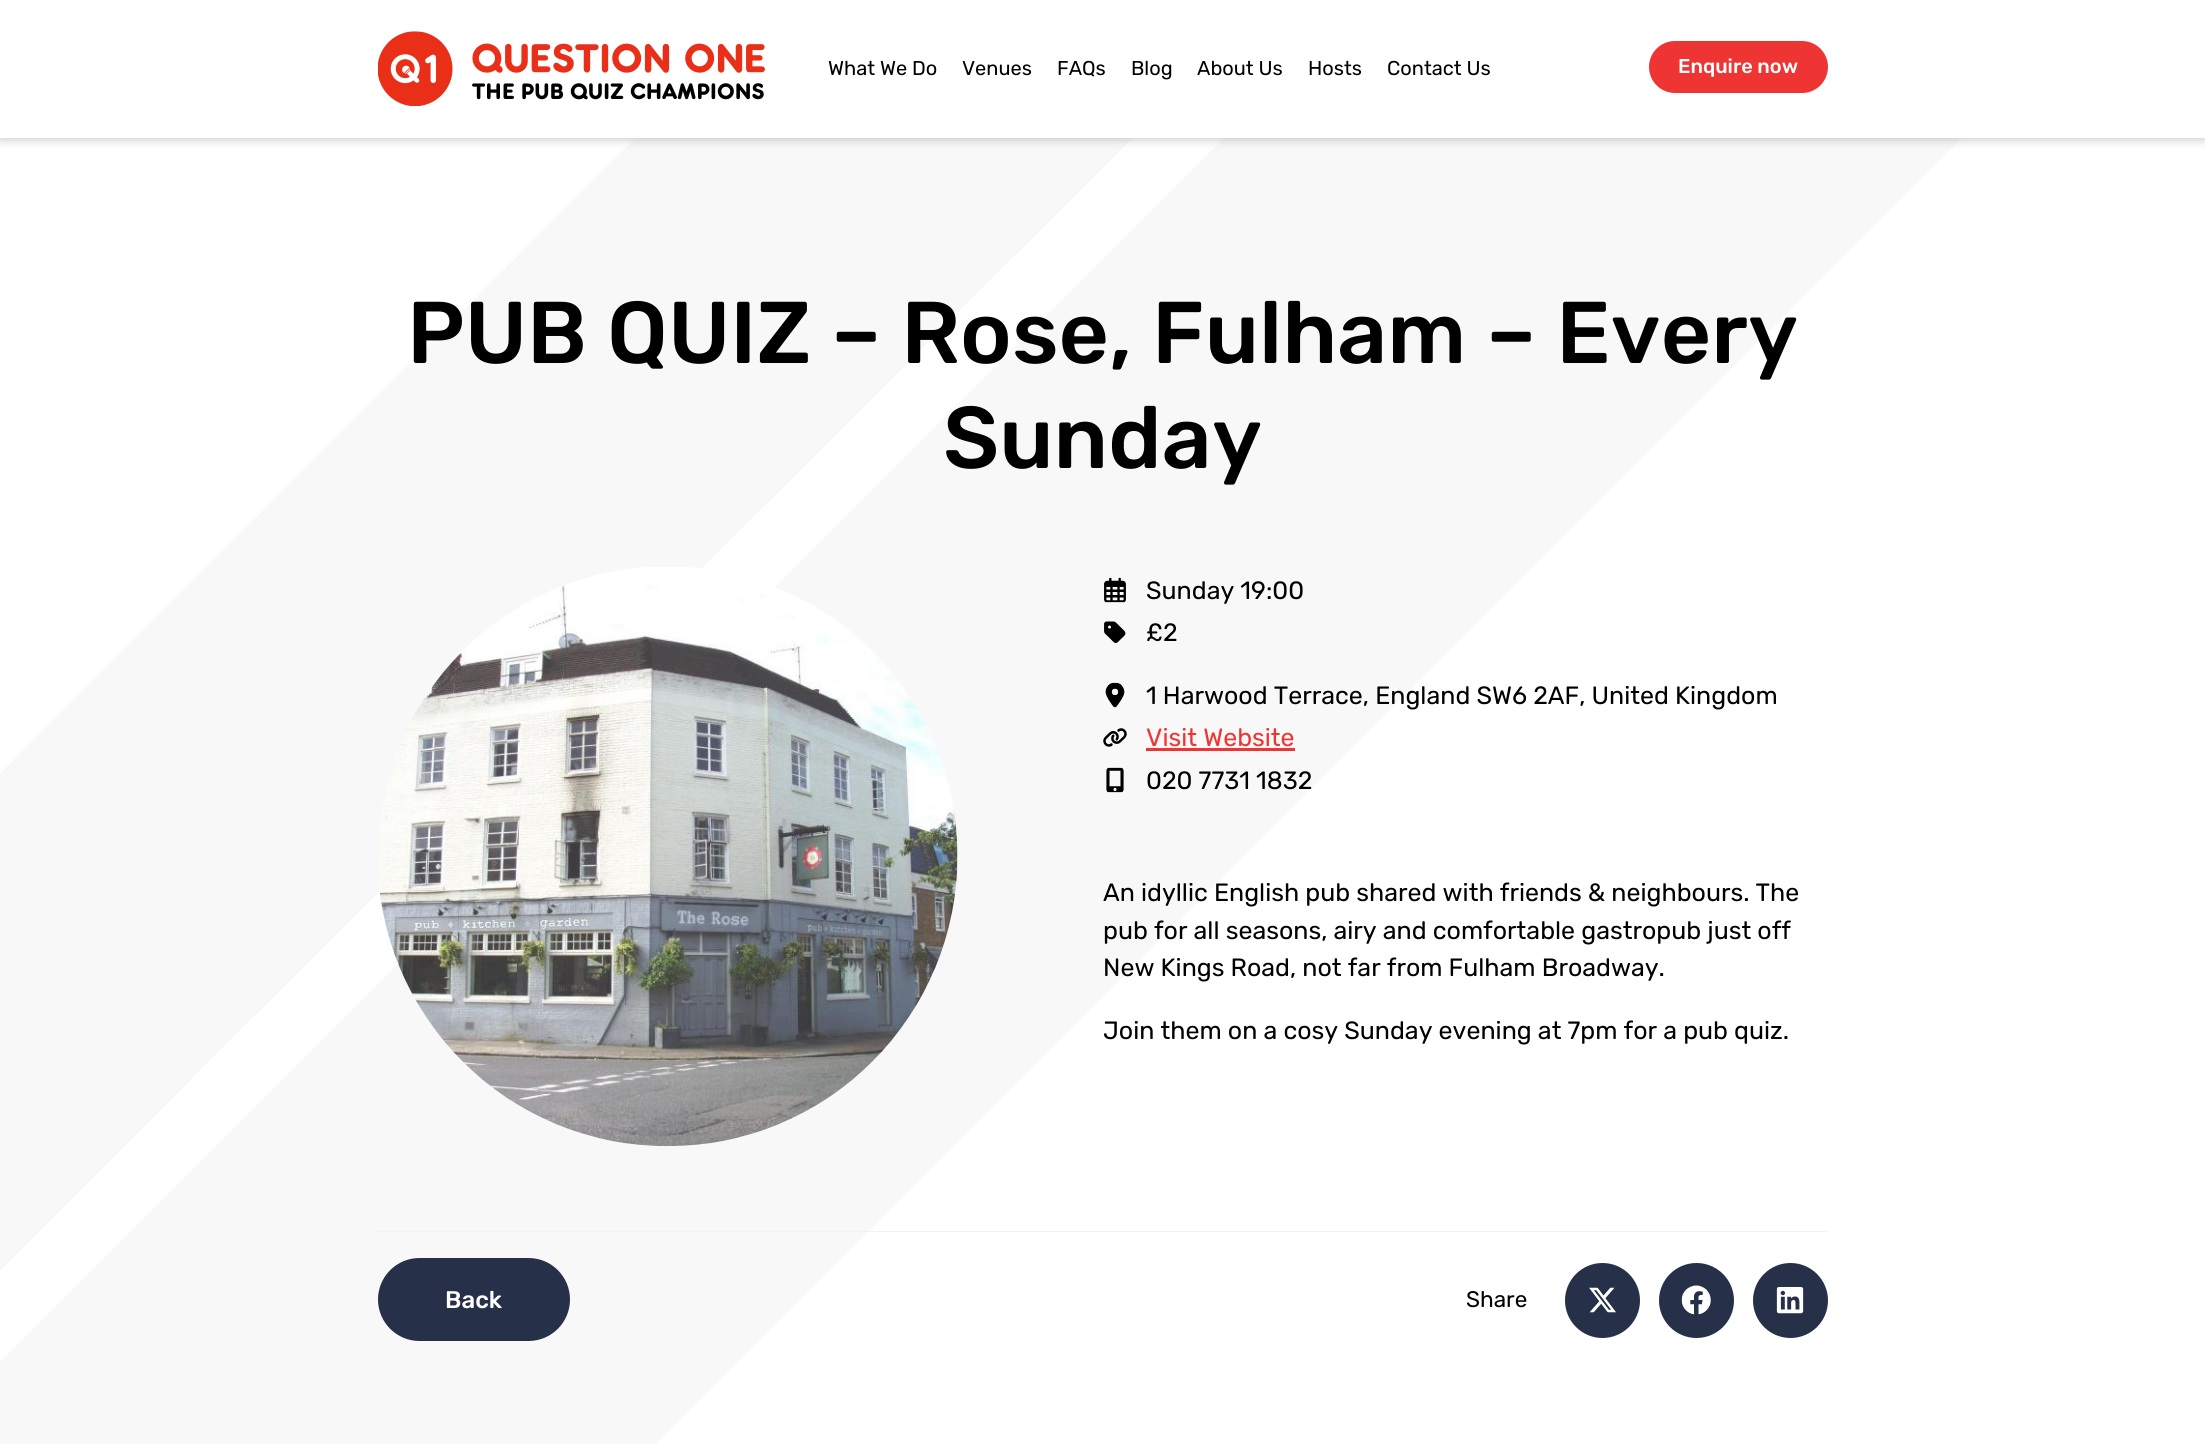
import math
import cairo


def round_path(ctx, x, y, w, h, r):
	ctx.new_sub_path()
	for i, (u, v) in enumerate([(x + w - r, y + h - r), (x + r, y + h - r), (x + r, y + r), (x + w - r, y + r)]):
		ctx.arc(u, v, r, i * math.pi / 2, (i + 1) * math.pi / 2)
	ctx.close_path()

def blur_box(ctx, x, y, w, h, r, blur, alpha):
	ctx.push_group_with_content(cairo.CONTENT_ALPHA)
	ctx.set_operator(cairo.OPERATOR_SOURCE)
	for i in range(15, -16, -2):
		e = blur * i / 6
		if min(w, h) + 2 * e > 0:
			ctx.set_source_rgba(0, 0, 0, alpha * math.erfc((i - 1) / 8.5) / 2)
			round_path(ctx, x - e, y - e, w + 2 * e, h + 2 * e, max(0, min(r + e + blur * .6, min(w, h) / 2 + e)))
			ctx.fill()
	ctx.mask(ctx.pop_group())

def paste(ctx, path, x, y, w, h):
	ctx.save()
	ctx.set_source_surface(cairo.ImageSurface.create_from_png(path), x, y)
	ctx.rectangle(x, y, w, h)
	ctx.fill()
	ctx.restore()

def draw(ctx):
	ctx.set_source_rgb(1, 1, 1)
	ctx.paint()
	paste(ctx, 'media/1.png', 0, 138, 1962, 1306)
	ctx.set_source_rgb(0, 0, 0)
	blur_box(ctx, 0, 3, 2205, 137, 0, 5, 0.2)
	ctx.set_source_rgb(1, 1, 1)
	ctx.rectangle(0, 0, 2205, 138)
	ctx.fill()
	paste(ctx, 'media/2.png', 378, 31, 387, 75)
	ctx.select_font_face('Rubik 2 Light')
	ctx.set_font_size(20)
	ctx.set_source_rgb(0, 0, 0)
	for x, y, s in [
		(828, 75, 'What We Do'),
		(962, 75, 'Venues'),
		(1057, 75, 'FAQs'),
		(1131, 75, 'Blog'),
		(1197, 75, 'About Us'),
		(1308, 75, 'Hosts'),
		(1387, 75, 'Contact Us'),
	]:
		ctx.move_to(x, y)
		ctx.show_text(s)
	ctx.set_source_rgb(0.937, 0.208, 0.2)
	round_path(ctx, 1649, 41, 179, 52, 26)
	ctx.fill()
	ctx.select_font_face('Rubik Light')
	ctx.set_source_rgb(1, 1, 1)
	ctx.move_to(1678, 73)
	ctx.show_text('Enquire now')
	ctx.set_font_size(87.5)
	ctx.set_source_rgb(0, 0, 0)
	ctx.move_to(407, 363)
	ctx.show_text('PUB QUIZ – Rose, Fulham – Every')
	ctx.move_to(943, 468)
	ctx.show_text('Sunday')
	paste(ctx, 'media/3.png', 378, 567, 580, 580)
	paste(ctx, 'media/4.png', 1104, 577, 22, 26)
	ctx.select_font_face('Rubik 2 Light')
	ctx.set_font_size(25)
	ctx.move_to(1146, 599)
	ctx.show_text('Sunday 19:00')
	paste(ctx, 'media/5.png', 1104, 621, 22, 22)
	ctx.move_to(1146, 641)
	ctx.show_text('£2')
	paste(ctx, 'media/6.png', 1105, 682, 20, 26)
	ctx.move_to(1146, 704)
	ctx.show_text('1 Harwood Terrace, England SW6 2AF, United Kingdom')
	paste(ctx, 'media/7.png', 1103, 728, 24, 19)
	ctx.set_source_rgb(0.937, 0.208, 0.2)
	ctx.move_to(1146, 746)
	ctx.show_text('Visit Website')
	ctx.rectangle(1146, 748, 149, 3)
	ctx.fill()
	paste(ctx, 'media/8.png', 1106, 767, 18, 26)
	ctx.set_source_rgb(0, 0, 0)
	for x, y, s in [
		(1146, 789, '020 7731 1832'),
		(1103, 901, 'An idyllic English pub shared with friends & neighbours. The'),
		(1103, 939, 'pub for all seasons, airy and comfortable gastropub just off'),
		(1103, 976, 'New Kings Road, not far from Fulham Broadway.'),
		(1103, 1039, 'Join them on a cosy Sunday evening at 7pm for a pub quiz.'),
	]:
		ctx.move_to(x, y)
		ctx.show_text(s)
	ctx.set_source_rgb(0.949, 0.949, 0.949)
	ctx.rectangle(378, 1231, 1450, 1)
	ctx.fill()
	ctx.set_source_rgb(0.149, 0.188, 0.286)
	round_path(ctx, 378, 1258, 192, 83, 41.5)
	ctx.fill()
	ctx.select_font_face('Rubik Light')
	ctx.set_font_size(24)
	ctx.set_source_rgb(1, 1, 1)
	ctx.move_to(445, 1308)
	ctx.show_text('Back')
	ctx.select_font_face('Rubik 2 Light')
	ctx.set_font_size(22.5)
	ctx.set_source_rgb(0, 0, 0)
	ctx.move_to(1466, 1307)
	ctx.show_text('Share')
	ctx.set_source_rgb(0.149, 0.188, 0.286)
	ctx.new_path()
	ctx.arc(1602.5, 1300.5, 37.5, 0, 2 * math.pi)
	ctx.fill()
	paste(ctx, 'media/9.png', 1589, 1287, 27, 26)
	ctx.arc(1696.5, 1300.5, 37.5, 0, 2 * math.pi)
	ctx.fill()
	paste(ctx, 'media/10.png', 1681, 1285, 30, 30)
	ctx.arc(1790.5, 1300.5, 37.5, 0, 2 * math.pi)
	ctx.fill()
	paste(ctx, 'media/11.png', 1776, 1287, 28, 27)


surface = cairo.ImageSurface(cairo.FORMAT_RGB24, 2205, 1444)
ctx = cairo.Context(surface)
options = cairo.FontOptions()
options.set_hint_metrics(cairo.HINT_METRICS_OFF)
options.set_hint_style(cairo.HINT_STYLE_NONE)
ctx.set_font_options(options)
ctx.set_miter_limit(4)
draw(ctx)
surface.write_to_png('image.png')
